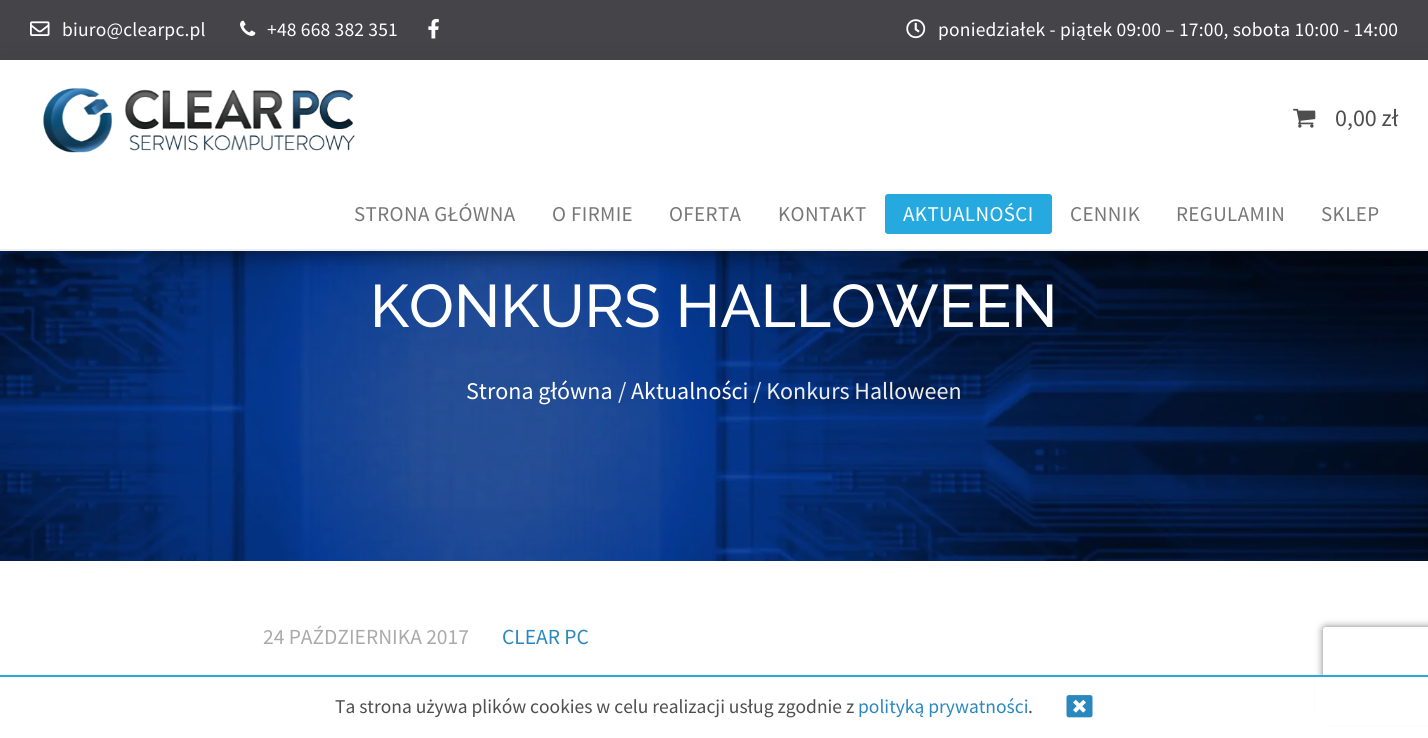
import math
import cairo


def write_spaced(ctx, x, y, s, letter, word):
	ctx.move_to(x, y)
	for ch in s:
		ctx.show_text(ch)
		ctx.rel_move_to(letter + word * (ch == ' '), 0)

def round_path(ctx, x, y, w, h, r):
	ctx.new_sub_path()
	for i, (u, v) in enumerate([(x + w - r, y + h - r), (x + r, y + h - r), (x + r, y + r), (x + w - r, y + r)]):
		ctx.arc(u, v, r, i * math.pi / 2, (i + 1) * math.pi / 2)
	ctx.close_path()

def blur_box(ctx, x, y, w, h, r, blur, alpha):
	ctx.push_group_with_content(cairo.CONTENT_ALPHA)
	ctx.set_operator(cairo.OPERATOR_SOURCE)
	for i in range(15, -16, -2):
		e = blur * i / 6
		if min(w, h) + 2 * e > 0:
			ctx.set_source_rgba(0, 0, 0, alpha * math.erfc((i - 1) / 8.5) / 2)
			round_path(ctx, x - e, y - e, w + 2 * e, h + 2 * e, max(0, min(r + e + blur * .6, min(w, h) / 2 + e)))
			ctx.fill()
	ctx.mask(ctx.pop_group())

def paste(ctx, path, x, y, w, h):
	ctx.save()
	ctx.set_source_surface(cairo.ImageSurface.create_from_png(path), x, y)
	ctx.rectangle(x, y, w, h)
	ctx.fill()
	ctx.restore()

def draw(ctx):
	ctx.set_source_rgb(1, 1, 1)
	ctx.paint()
	paste(ctx, 'media/1.png', 0, 251, 1428, 310)
	ctx.set_source_rgb(0.267, 0.267, 0.286)
	ctx.rectangle(0, 0, 1428, 60)
	ctx.fill()
	paste(ctx, 'media/2.png', 30, 21, 20, 15)
	ctx.select_font_face('Source Sans Pro')
	ctx.set_font_size(19.5)
	ctx.set_source_rgb(1, 1, 1)
	write_spaced(ctx, 62, 36, 'biuro@clearpc.pl', 0.2, 0)
	paste(ctx, 'media/3.png', 240, 20, 16, 16)
	write_spaced(ctx, 267, 36, '+48 668 382 351', 0.2, 0)
	paste(ctx, 'media/4.png', 428, 18, 11, 21)
	paste(ctx, 'media/5.png', 906, 19, 20, 20)
	write_spaced(ctx, 938, 36, 'poniedziałek - piątek 09:00 – 17:00, sobota 10:00 - 14:00', 0.2, 0)
	ctx.set_source_rgba(0, 0, 0, 0.4)
	ctx.rectangle(0, 251, 1428, 310)
	ctx.fill()
	ctx.set_source_rgb(0, 0, 0)
	blur_box(ctx, 8, 80, 1413, 175, 0, 7.5, 0.2)
	blur_box(ctx, 0, 65, 1428, 190, 0, 15, 0.12)
	blur_box(ctx, 18, 93, 1392, 155, 0, 15, 0.42)
	ctx.set_source_rgb(1, 1, 1)
	ctx.rectangle(0, 60, 1428, 189)
	ctx.fill()
	ctx.set_source_rgb(0.941, 0.941, 0.941)
	ctx.rectangle(0, 249, 1428, 2)
	ctx.fill()
	paste(ctx, 'media/6.png', 43, 88, 312, 65)
	paste(ctx, 'media/7.png', 1293, 108, 23, 20)
	ctx.set_font_size(24)
	ctx.set_source_rgb(0.306, 0.306, 0.306)
	ctx.move_to(1335, 126)
	ctx.show_text('0,00 zł')
	ctx.set_font_size(21)
	ctx.set_source_rgb(0.467, 0.467, 0.467)
	for x, y, s in [
		(354, 221, 'STRONA GŁÓWNA'),
		(552, 221, 'O FIRMIE'),
		(669, 221, 'OFERTA'),
		(778, 221, 'KONTAKT'),
	]:
		write_spaced(ctx, x, y, s, 0.4, 0)
	ctx.set_source_rgb(0.149, 0.663, 0.875)
	round_path(ctx, 885, 194, 167, 40, 3)
	ctx.fill()
	ctx.set_source_rgb(1, 1, 1)
	write_spaced(ctx, 903, 221, 'AKTUALNOŚCI', 0.4, 0)
	ctx.set_source_rgb(0.467, 0.467, 0.467)
	for x, y, s in [
		(1070, 221, 'CENNIK'),
		(1176, 221, 'REGULAMIN'),
		(1321, 221, 'SKLEP'),
	]:
		write_spaced(ctx, x, y, s, 0.4, 0)
	ctx.select_font_face('Raleway Thin')
	ctx.set_font_size(60)
	ctx.set_source_rgb(1, 1, 1)
	ctx.move_to(370, 327)
	ctx.show_text('KONKURS HALLOWEEN')
	ctx.select_font_face('Source Sans Pro')
	ctx.set_font_size(24)
	ctx.move_to(466, 399)
	ctx.show_text('Strona główna')
	ctx.set_source_rgb(0.933, 0.933, 0.933)
	ctx.move_to(618, 399)
	ctx.show_text('/')
	ctx.set_source_rgb(1, 1, 1)
	ctx.move_to(631, 399)
	ctx.show_text('Aktualności')
	ctx.set_source_rgb(0.933, 0.933, 0.933)
	ctx.move_to(753, 399)
	ctx.show_text('/ Konkurs Halloween')
	ctx.set_font_size(21.5)
	ctx.set_source_rgb(0.667, 0.667, 0.667)
	ctx.move_to(263, 644)
	ctx.show_text('24 PAŹDZIERNIKA 2017')
	ctx.set_source_rgb(0.165, 0.533, 0.749)
	ctx.move_to(502, 644)
	ctx.show_text('CLEAR PC')
	ctx.save()
	ctx.set_fill_rule(cairo.FILL_RULE_EVEN_ODD)
	ctx.new_path()
	ctx.move_to(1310, 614)
	ctx.line_to(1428, 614)
	ctx.line_to(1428, 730)
	ctx.line_to(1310, 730)
	ctx.close_path()
	ctx.move_to(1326, 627)
	ctx.line_to(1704, 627)
	ctx.curve_to(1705.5, 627, 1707, 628.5, 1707, 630)
	ctx.line_to(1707, 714)
	ctx.curve_to(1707, 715.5, 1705.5, 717, 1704, 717)
	ctx.line_to(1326, 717)
	ctx.curve_to(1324.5, 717, 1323, 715.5, 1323, 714)
	ctx.line_to(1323, 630)
	ctx.curve_to(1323, 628.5, 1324.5, 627, 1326, 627)
	ctx.close_path()
	ctx.clip()
	ctx.set_source_rgb(0.502, 0.502, 0.502)
	blur_box(ctx, 1323, 627, 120, 90, 3, 4, 1)
	ctx.restore()
	ctx.set_source_rgb(1, 1, 1)
	ctx.rectangle(1315, 677, 113, 48)
	ctx.fill()
	ctx.set_source_rgb(0.149, 0.663, 0.875)
	ctx.rectangle(0, 675, 1428, 2)
	ctx.fill()
	ctx.set_font_size(19.5)
	ctx.set_source_rgb(0.306, 0.306, 0.306)
	ctx.move_to(335, 713)
	ctx.show_text('Ta strona używa plików cookies w celu realizacji usług zgodnie z')
	ctx.set_source_rgb(0.165, 0.533, 0.749)
	ctx.move_to(858, 713)
	ctx.show_text('polityką prywatności')
	ctx.set_source_rgb(0.306, 0.306, 0.306)
	ctx.move_to(1028, 713)
	ctx.show_text('.')
	paste(ctx, 'media/8.png', 1066, 695, 27, 23)


surface = cairo.ImageSurface(cairo.FORMAT_RGB24, 1428, 738)
ctx = cairo.Context(surface)
options = cairo.FontOptions()
options.set_hint_metrics(cairo.HINT_METRICS_OFF)
options.set_hint_style(cairo.HINT_STYLE_NONE)
ctx.set_font_options(options)
ctx.set_miter_limit(4)
draw(ctx)
surface.write_to_png('image.png')
